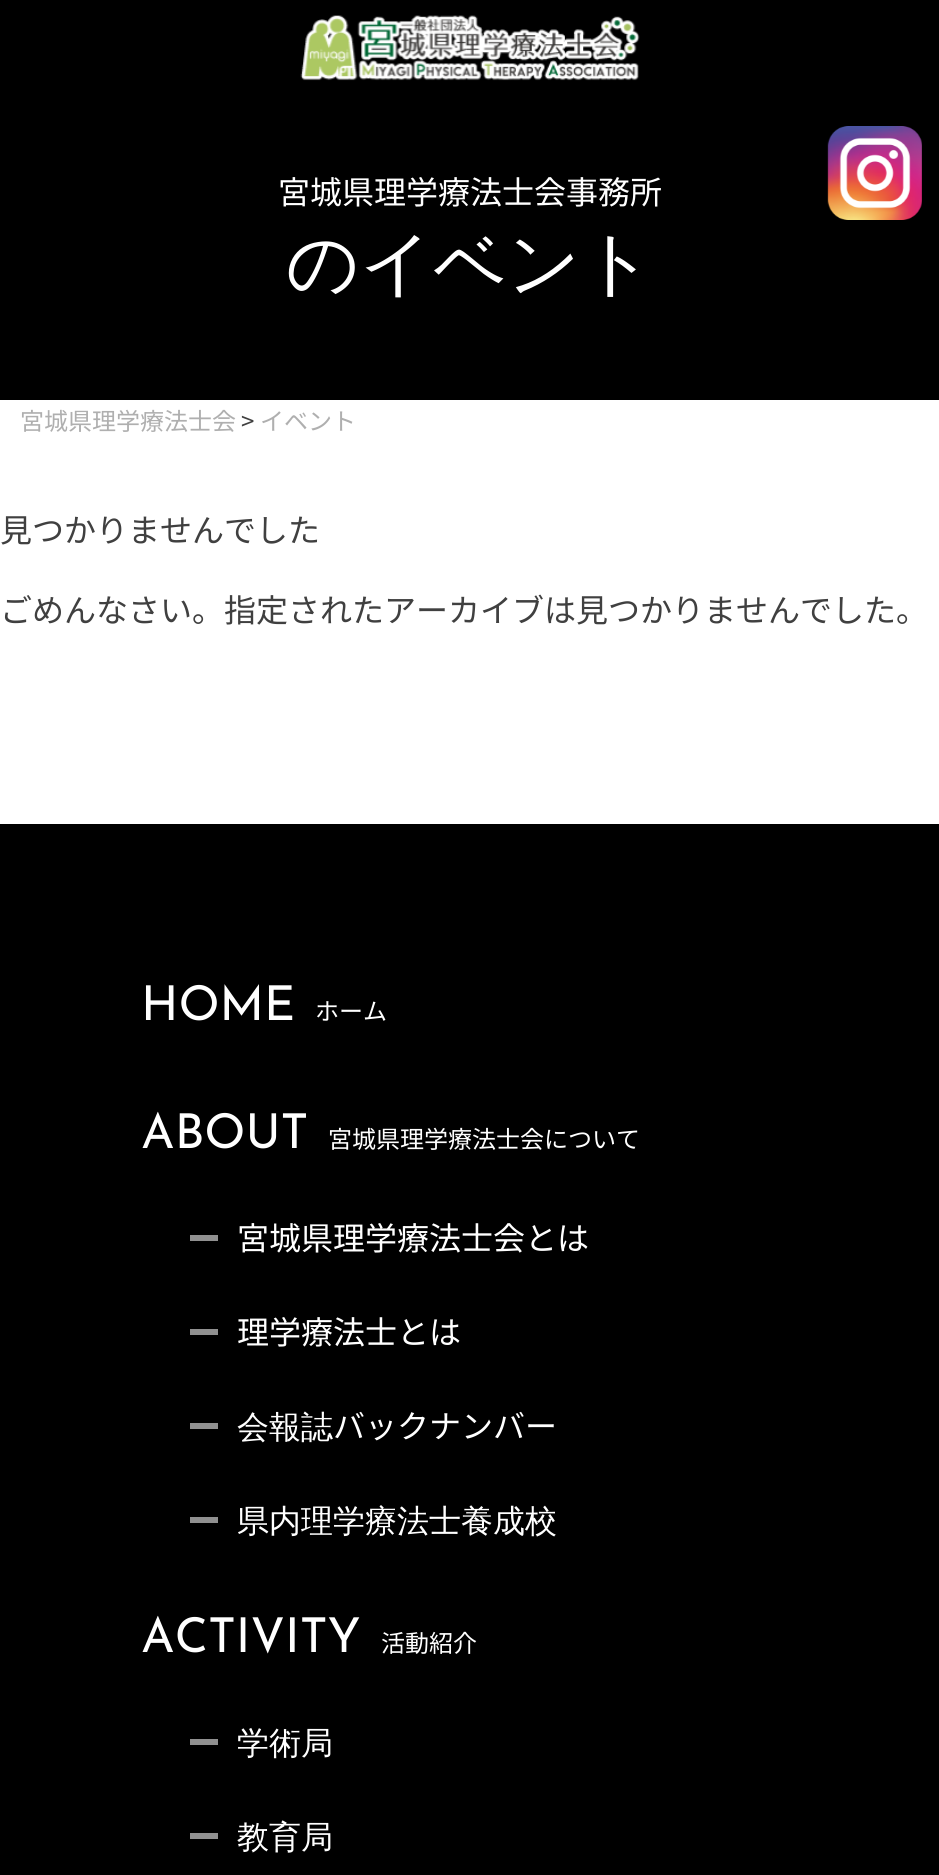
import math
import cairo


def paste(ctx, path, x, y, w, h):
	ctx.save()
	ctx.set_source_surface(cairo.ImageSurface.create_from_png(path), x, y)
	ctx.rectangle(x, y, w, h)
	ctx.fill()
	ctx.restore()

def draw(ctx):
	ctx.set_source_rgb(1, 1, 1)
	ctx.paint()
	ctx.set_source_rgb(0, 0, 0)
	ctx.rectangle(0, 0, 939, 400)
	ctx.fill()
	paste(ctx, 'media/1.png', 300, 15, 340, 66)
	paste(ctx, 'media/2.png', 827, 126, 95, 94)
	ctx.select_font_face('Noto Sans JP Thin')
	ctx.set_font_size(32)
	ctx.set_source_rgb(1, 1, 1)
	ctx.move_to(278, 204)
	ctx.show_text('宮城県理学療法士会事務所')
	ctx.select_font_face('WenQuanYi Zen Hei Medium')
	ctx.set_font_size(72)
	ctx.move_to(286, 288)
	ctx.show_text('のイベント')
	ctx.select_font_face('Noto Sans JP Thin')
	ctx.set_font_size(24)
	ctx.set_source_rgb(0.686, 0.686, 0.686)
	ctx.move_to(20, 430)
	ctx.show_text('宮城県理学療法士会')
	ctx.set_source_rgb(0.251, 0.251, 0.251)
	ctx.move_to(241, 430)
	ctx.show_text('>')
	ctx.set_source_rgb(0.686, 0.686, 0.686)
	ctx.move_to(260, 430)
	ctx.show_text('イベント')
	ctx.set_font_size(32)
	ctx.set_source_rgb(0.251, 0.251, 0.251)
	ctx.move_to(0, 542)
	ctx.show_text('見つかりませんでした')
	ctx.move_to(0, 622)
	ctx.show_text('ごめんなさい。指定されたアーカイブは見つかりませんでした。')
	ctx.set_source_rgb(0, 0, 0)
	ctx.rectangle(0, 824, 939, 1051)
	ctx.fill()
	ctx.select_font_face('Josefin Sans Thin')
	ctx.set_font_size(48)
	ctx.set_source_rgb(1, 1, 1)
	ctx.move_to(141, 1020)
	ctx.show_text('HOME')
	ctx.select_font_face('Noto Sans JP Thin')
	ctx.set_font_size(24)
	ctx.move_to(315, 1020)
	ctx.show_text('ホーム')
	ctx.select_font_face('Josefin Sans Thin')
	ctx.set_font_size(48)
	ctx.move_to(141, 1148)
	ctx.show_text('ABOUT')
	ctx.select_font_face('Noto Sans JP Thin')
	ctx.set_font_size(24)
	ctx.move_to(328, 1148)
	ctx.show_text('宮城県理学療法士会について')
	ctx.set_font_size(32)
	ctx.move_to(237, 1250)
	ctx.show_text('宮城県理学療法士会とは')
	ctx.set_source_rgb(0.565, 0.565, 0.565)
	ctx.rectangle(190, 1235, 28, 6)
	ctx.fill()
	ctx.set_source_rgb(1, 1, 1)
	ctx.move_to(237, 1344)
	ctx.show_text('理学療法士とは')
	ctx.set_source_rgb(0.565, 0.565, 0.565)
	ctx.rectangle(190, 1329, 28, 6)
	ctx.fill()
	ctx.select_font_face('WenQuanYi Zen Hei Medium')
	ctx.set_source_rgb(1, 1, 1)
	ctx.move_to(237, 1438)
	ctx.show_text('会報誌')
	ctx.set_source_rgb(0.565, 0.565, 0.565)
	ctx.rectangle(190, 1423, 28, 6)
	ctx.fill()
	ctx.select_font_face('Noto Sans JP Thin')
	ctx.set_source_rgb(1, 1, 1)
	ctx.move_to(333, 1438)
	ctx.show_text('バックナンバー')
	ctx.select_font_face('WenQuanYi Zen Hei Medium')
	ctx.move_to(237, 1532)
	ctx.show_text('県内理学療法士養成校')
	ctx.set_source_rgb(0.565, 0.565, 0.565)
	ctx.rectangle(190, 1517, 28, 6)
	ctx.fill()
	ctx.select_font_face('Josefin Sans Thin')
	ctx.set_font_size(48)
	ctx.set_source_rgb(1, 1, 1)
	ctx.move_to(141, 1652)
	ctx.show_text('ACTIVITY')
	ctx.select_font_face('Noto Sans JP Thin')
	ctx.set_font_size(24)
	ctx.move_to(381, 1652)
	ctx.show_text('活動紹介')
	ctx.select_font_face('WenQuanYi Zen Hei Medium')
	ctx.set_font_size(32)
	ctx.move_to(237, 1754)
	ctx.show_text('学術局')
	ctx.set_source_rgb(0.565, 0.565, 0.565)
	ctx.rectangle(190, 1739, 28, 6)
	ctx.fill()
	ctx.set_source_rgb(1, 1, 1)
	ctx.move_to(237, 1848)
	ctx.show_text('教育局')
	ctx.set_source_rgb(0.565, 0.565, 0.565)
	ctx.rectangle(190, 1833, 28, 6)
	ctx.fill()


surface = cairo.ImageSurface(cairo.FORMAT_RGB24, 939, 1875)
ctx = cairo.Context(surface)
options = cairo.FontOptions()
options.set_hint_metrics(cairo.HINT_METRICS_OFF)
options.set_hint_style(cairo.HINT_STYLE_NONE)
ctx.set_font_options(options)
ctx.set_miter_limit(4)
draw(ctx)
surface.write_to_png('image.png')
